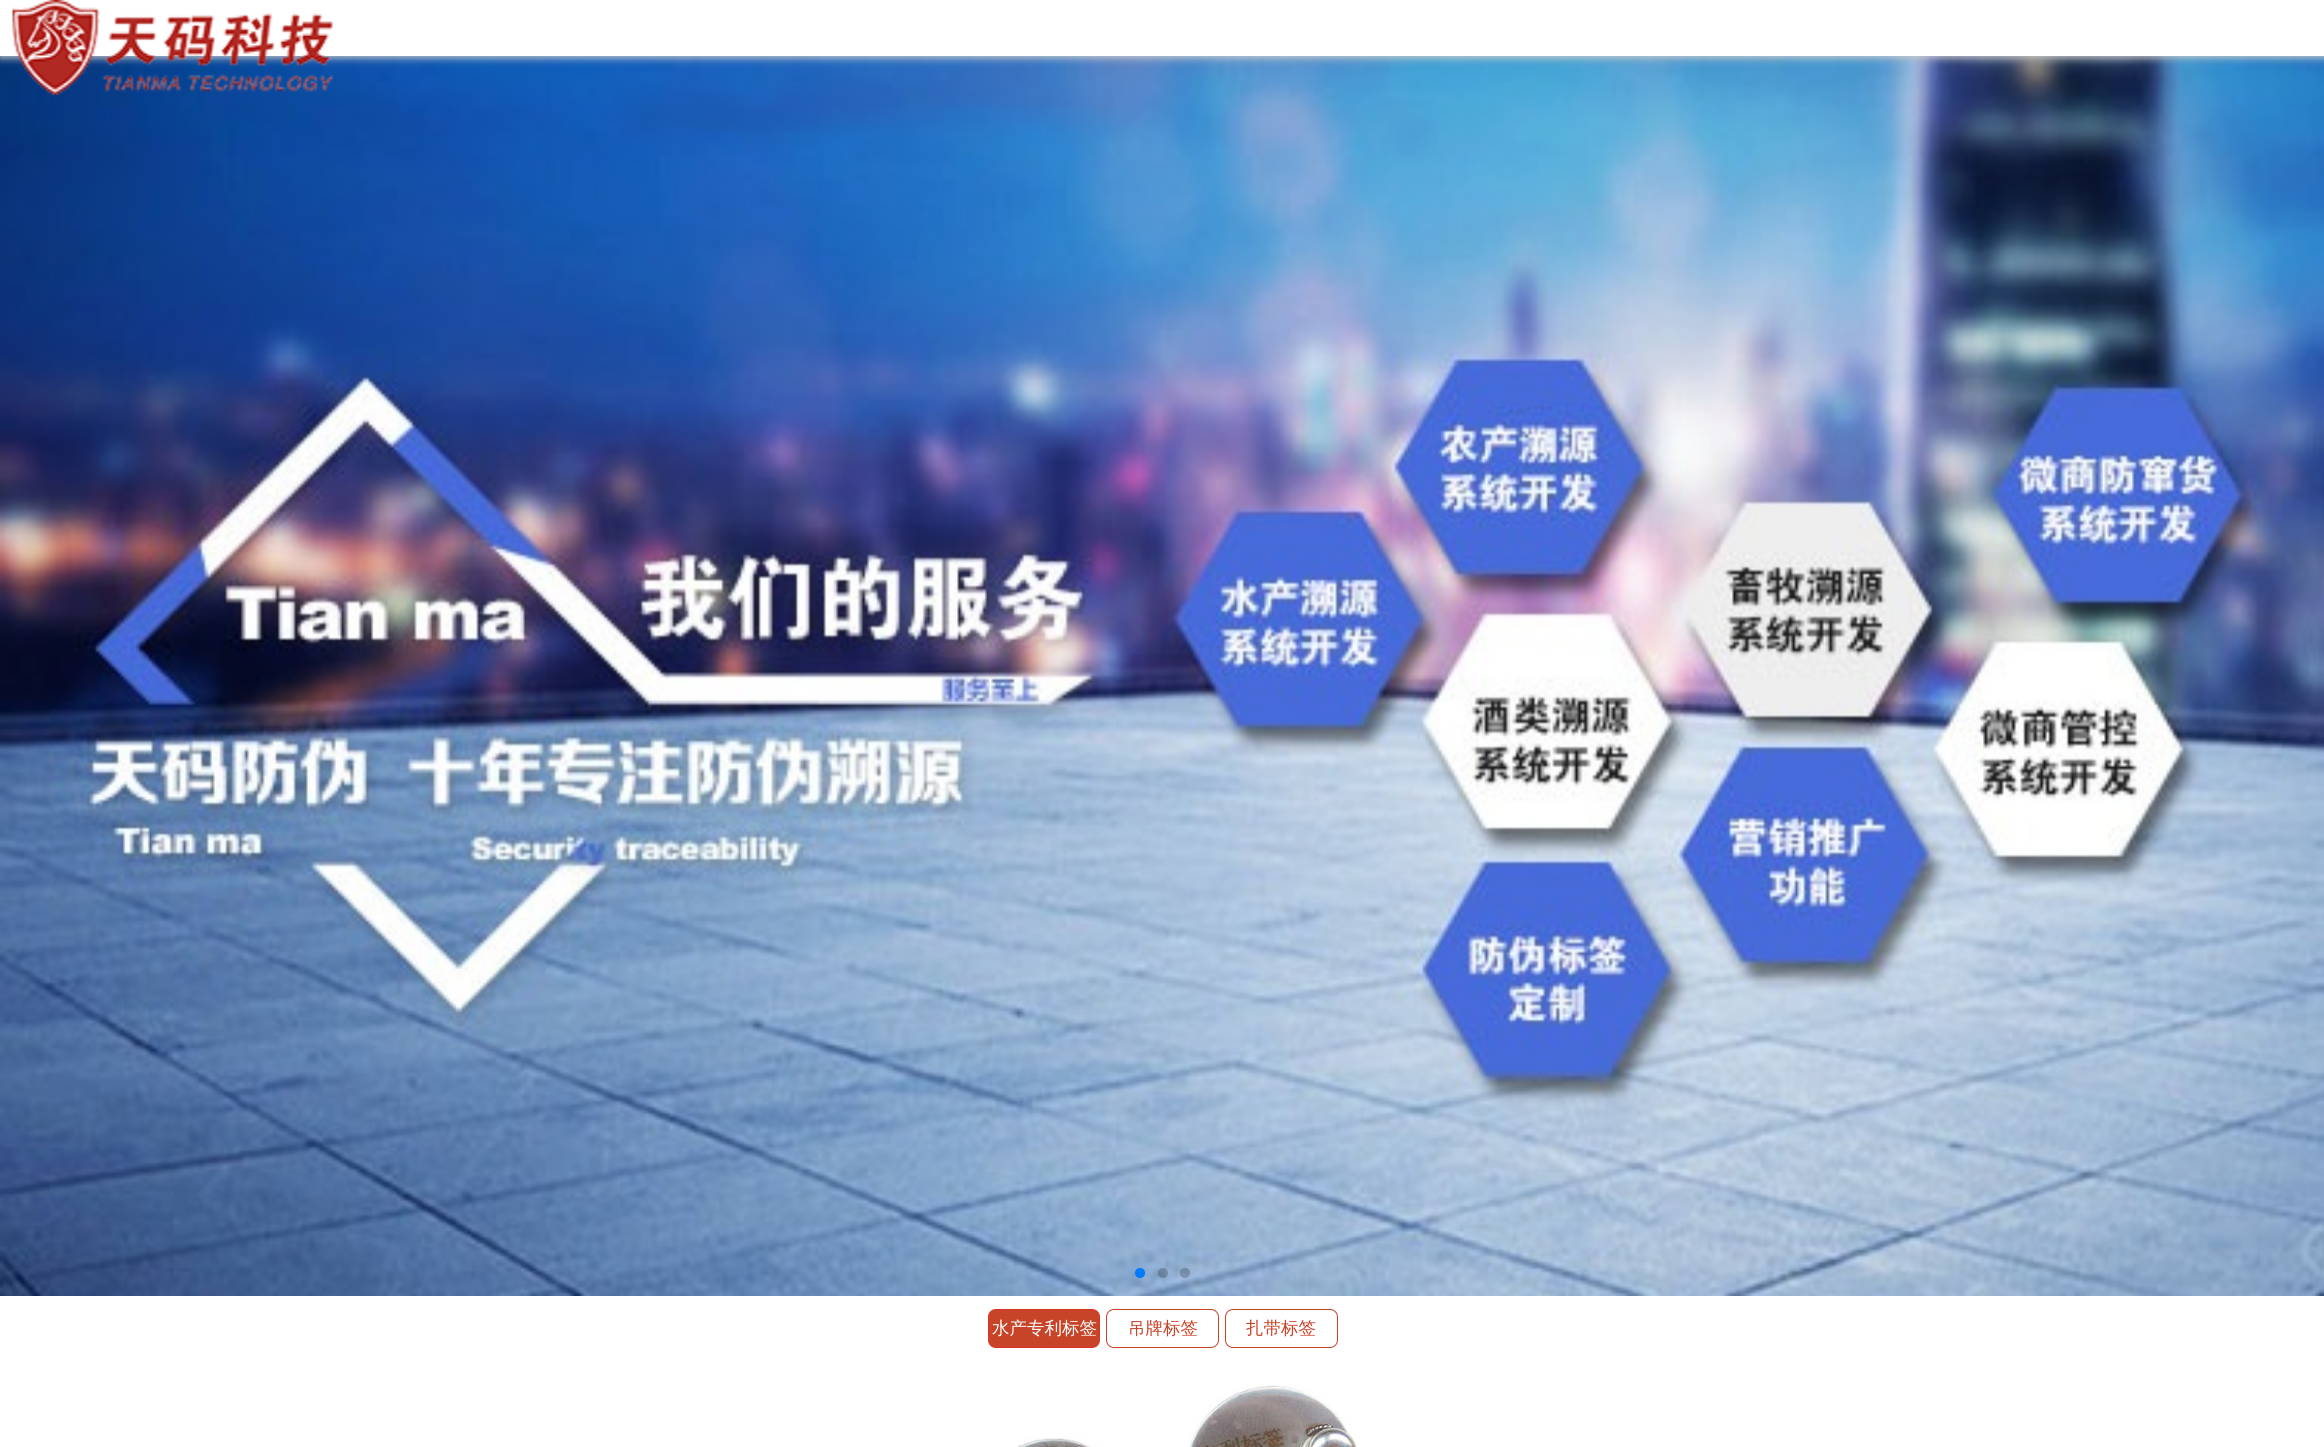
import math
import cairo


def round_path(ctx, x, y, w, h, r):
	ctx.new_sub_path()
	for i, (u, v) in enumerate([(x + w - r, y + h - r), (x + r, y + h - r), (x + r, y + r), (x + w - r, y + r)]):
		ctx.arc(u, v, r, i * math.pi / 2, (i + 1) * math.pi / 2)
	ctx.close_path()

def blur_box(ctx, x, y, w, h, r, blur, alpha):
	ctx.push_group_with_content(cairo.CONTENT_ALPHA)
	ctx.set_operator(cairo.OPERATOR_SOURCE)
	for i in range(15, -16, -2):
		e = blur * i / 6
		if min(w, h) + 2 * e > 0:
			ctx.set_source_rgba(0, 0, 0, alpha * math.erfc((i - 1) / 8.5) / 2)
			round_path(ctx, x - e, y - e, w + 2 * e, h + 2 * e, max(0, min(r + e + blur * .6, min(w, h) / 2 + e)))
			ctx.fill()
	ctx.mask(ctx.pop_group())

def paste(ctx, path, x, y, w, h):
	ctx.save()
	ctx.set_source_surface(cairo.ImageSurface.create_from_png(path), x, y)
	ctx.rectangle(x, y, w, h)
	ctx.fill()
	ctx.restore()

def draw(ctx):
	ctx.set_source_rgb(1, 1, 1)
	ctx.paint()
	paste(ctx, 'media/2.png', 0, 56, 2324, 1240)
	ctx.set_source_rgb(0.8, 0.8, 0.8)
	blur_box(ctx, 0, 1, 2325, 57, 0, 4, 1)
	ctx.set_source_rgb(1, 1, 1)
	ctx.rectangle(0, 0, 2324, 56)
	ctx.fill()
	paste(ctx, 'media/1.png', 12, 0, 321, 95)
	ctx.set_source_rgb(0, 0.478, 1)
	ctx.arc(1140, 1273, 5, 0, 2 * math.pi)
	ctx.fill()
	ctx.set_source_rgba(0, 0, 0, 0.2)
	ctx.arc(1163, 1273, 5, 0, 2 * math.pi)
	ctx.fill()
	ctx.arc(1185, 1273, 5, 0, 2 * math.pi)
	ctx.fill()
	ctx.set_source_rgb(0.78, 0.267, 0.157)
	round_path(ctx, 988.5, 1309.5, 111, 38, 7.5)
	ctx.fill_preserve()
	ctx.set_source_rgb(0.875, 0.196, 0.141)
	ctx.set_line_width(1)
	ctx.stroke()
	ctx.select_font_face('WenQuanYi Zen Hei Medium')
	ctx.set_font_size(17.5)
	ctx.set_source_rgb(1, 1, 1)
	ctx.move_to(992, 1334)
	ctx.show_text('水产专利标签')
	round_path(ctx, 1106.5, 1309.5, 112, 38, 7.5)
	ctx.set_source_rgb(0.78, 0.267, 0.157)
	ctx.stroke()
	ctx.move_to(1128, 1334)
	ctx.show_text('吊牌标签')
	round_path(ctx, 1225.5, 1309.5, 112, 38, 7.5)
	ctx.stroke()
	ctx.move_to(1246, 1334)
	ctx.show_text('扎带标签')
	paste(ctx, 'media/3.png', 1017, 1384, 340, 63)


surface = cairo.ImageSurface(cairo.FORMAT_RGB24, 2324, 1447)
ctx = cairo.Context(surface)
options = cairo.FontOptions()
options.set_hint_metrics(cairo.HINT_METRICS_OFF)
options.set_hint_style(cairo.HINT_STYLE_NONE)
ctx.set_font_options(options)
ctx.set_miter_limit(4)
draw(ctx)
surface.write_to_png('image.png')
